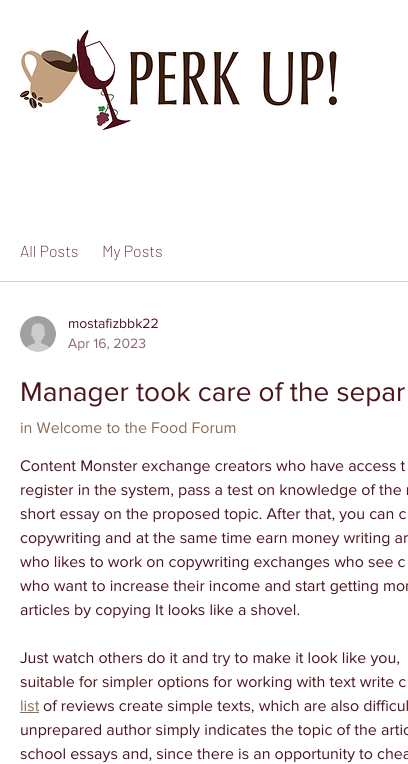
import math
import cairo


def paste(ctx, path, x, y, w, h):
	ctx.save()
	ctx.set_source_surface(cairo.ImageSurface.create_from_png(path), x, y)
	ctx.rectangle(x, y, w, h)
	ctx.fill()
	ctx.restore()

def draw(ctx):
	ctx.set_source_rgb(1, 1, 1)
	ctx.paint()
	paste(ctx, 'media/1.png', 20, 30, 319, 100)
	ctx.set_source_rgb(0.859, 0.816, 0.824)
	ctx.rectangle(0, 281, 408, 1)
	ctx.fill()
	ctx.select_font_face('Barlow ExtraLight')
	ctx.set_font_size(16)
	ctx.set_source_rgb(0.298, 0.078, 0.11)
	ctx.move_to(20, 257)
	ctx.show_text('All Posts')
	ctx.move_to(102, 257)
	ctx.show_text('My Posts')
	paste(ctx, 'media/2.png', 20, 316, 36, 36)
	ctx.select_font_face('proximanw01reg')
	ctx.set_font_size(14)
	ctx.move_to(68, 328)
	ctx.show_text('mostafizbbk22')
	ctx.set_source_rgb(0.549, 0.412, 0.431)
	ctx.move_to(68, 348)
	ctx.show_text('Apr 16, 2023')
	ctx.set_font_size(28)
	ctx.set_source_rgb(0.298, 0.078, 0.11)
	ctx.move_to(20, 401)
	ctx.show_text('Manager took care of the separ')
	ctx.set_font_size(16)
	ctx.set_source_rgb(0.549, 0.424, 0.329)
	ctx.move_to(20, 433)
	ctx.show_text('in Welcome to the Food Forum')
	ctx.set_source_rgb(0.298, 0.078, 0.11)
	for x, y, s in [
		(20, 471, 'Content Monster exchange creators who have access t'),
		(20, 495, 'register in the system, pass a test on knowledge of the r'),
		(20, 519, 'short essay on the proposed topic. After that, you can c'),
		(20, 543, 'copywriting and at the same time earn money writing ar'),
		(20, 567, 'who likes to work on copywriting exchanges who see c'),
		(20, 591, 'who want to increase their income and start getting mor'),
		(20, 615, 'articles by copying It looks like a shovel.'),
		(20, 663, 'Just watch others do it and try to make it look like you,'),
		(20, 687, 'suitable for simpler options for working with text write c'),
	]:
		ctx.move_to(x, y)
		ctx.show_text(s)
	ctx.set_source_rgb(0.549, 0.424, 0.329)
	ctx.move_to(20, 711)
	ctx.show_text('list')
	ctx.rectangle(20, 712, 19, 1)
	ctx.fill()
	ctx.set_source_rgb(0.298, 0.078, 0.11)
	for x, y, s in [
		(43, 711, 'of reviews create simple texts, which are also difficul'),
		(20, 735, 'unprepared author simply indicates the topic of the artic'),
		(20, 759, 'school essays and, since there is an opportunity to chea'),
	]:
		ctx.move_to(x, y)
		ctx.show_text(s)


surface = cairo.ImageSurface(cairo.FORMAT_RGB24, 408, 764)
ctx = cairo.Context(surface)
options = cairo.FontOptions()
options.set_hint_metrics(cairo.HINT_METRICS_OFF)
options.set_hint_style(cairo.HINT_STYLE_NONE)
ctx.set_font_options(options)
ctx.set_miter_limit(4)
draw(ctx)
surface.write_to_png('image.png')
